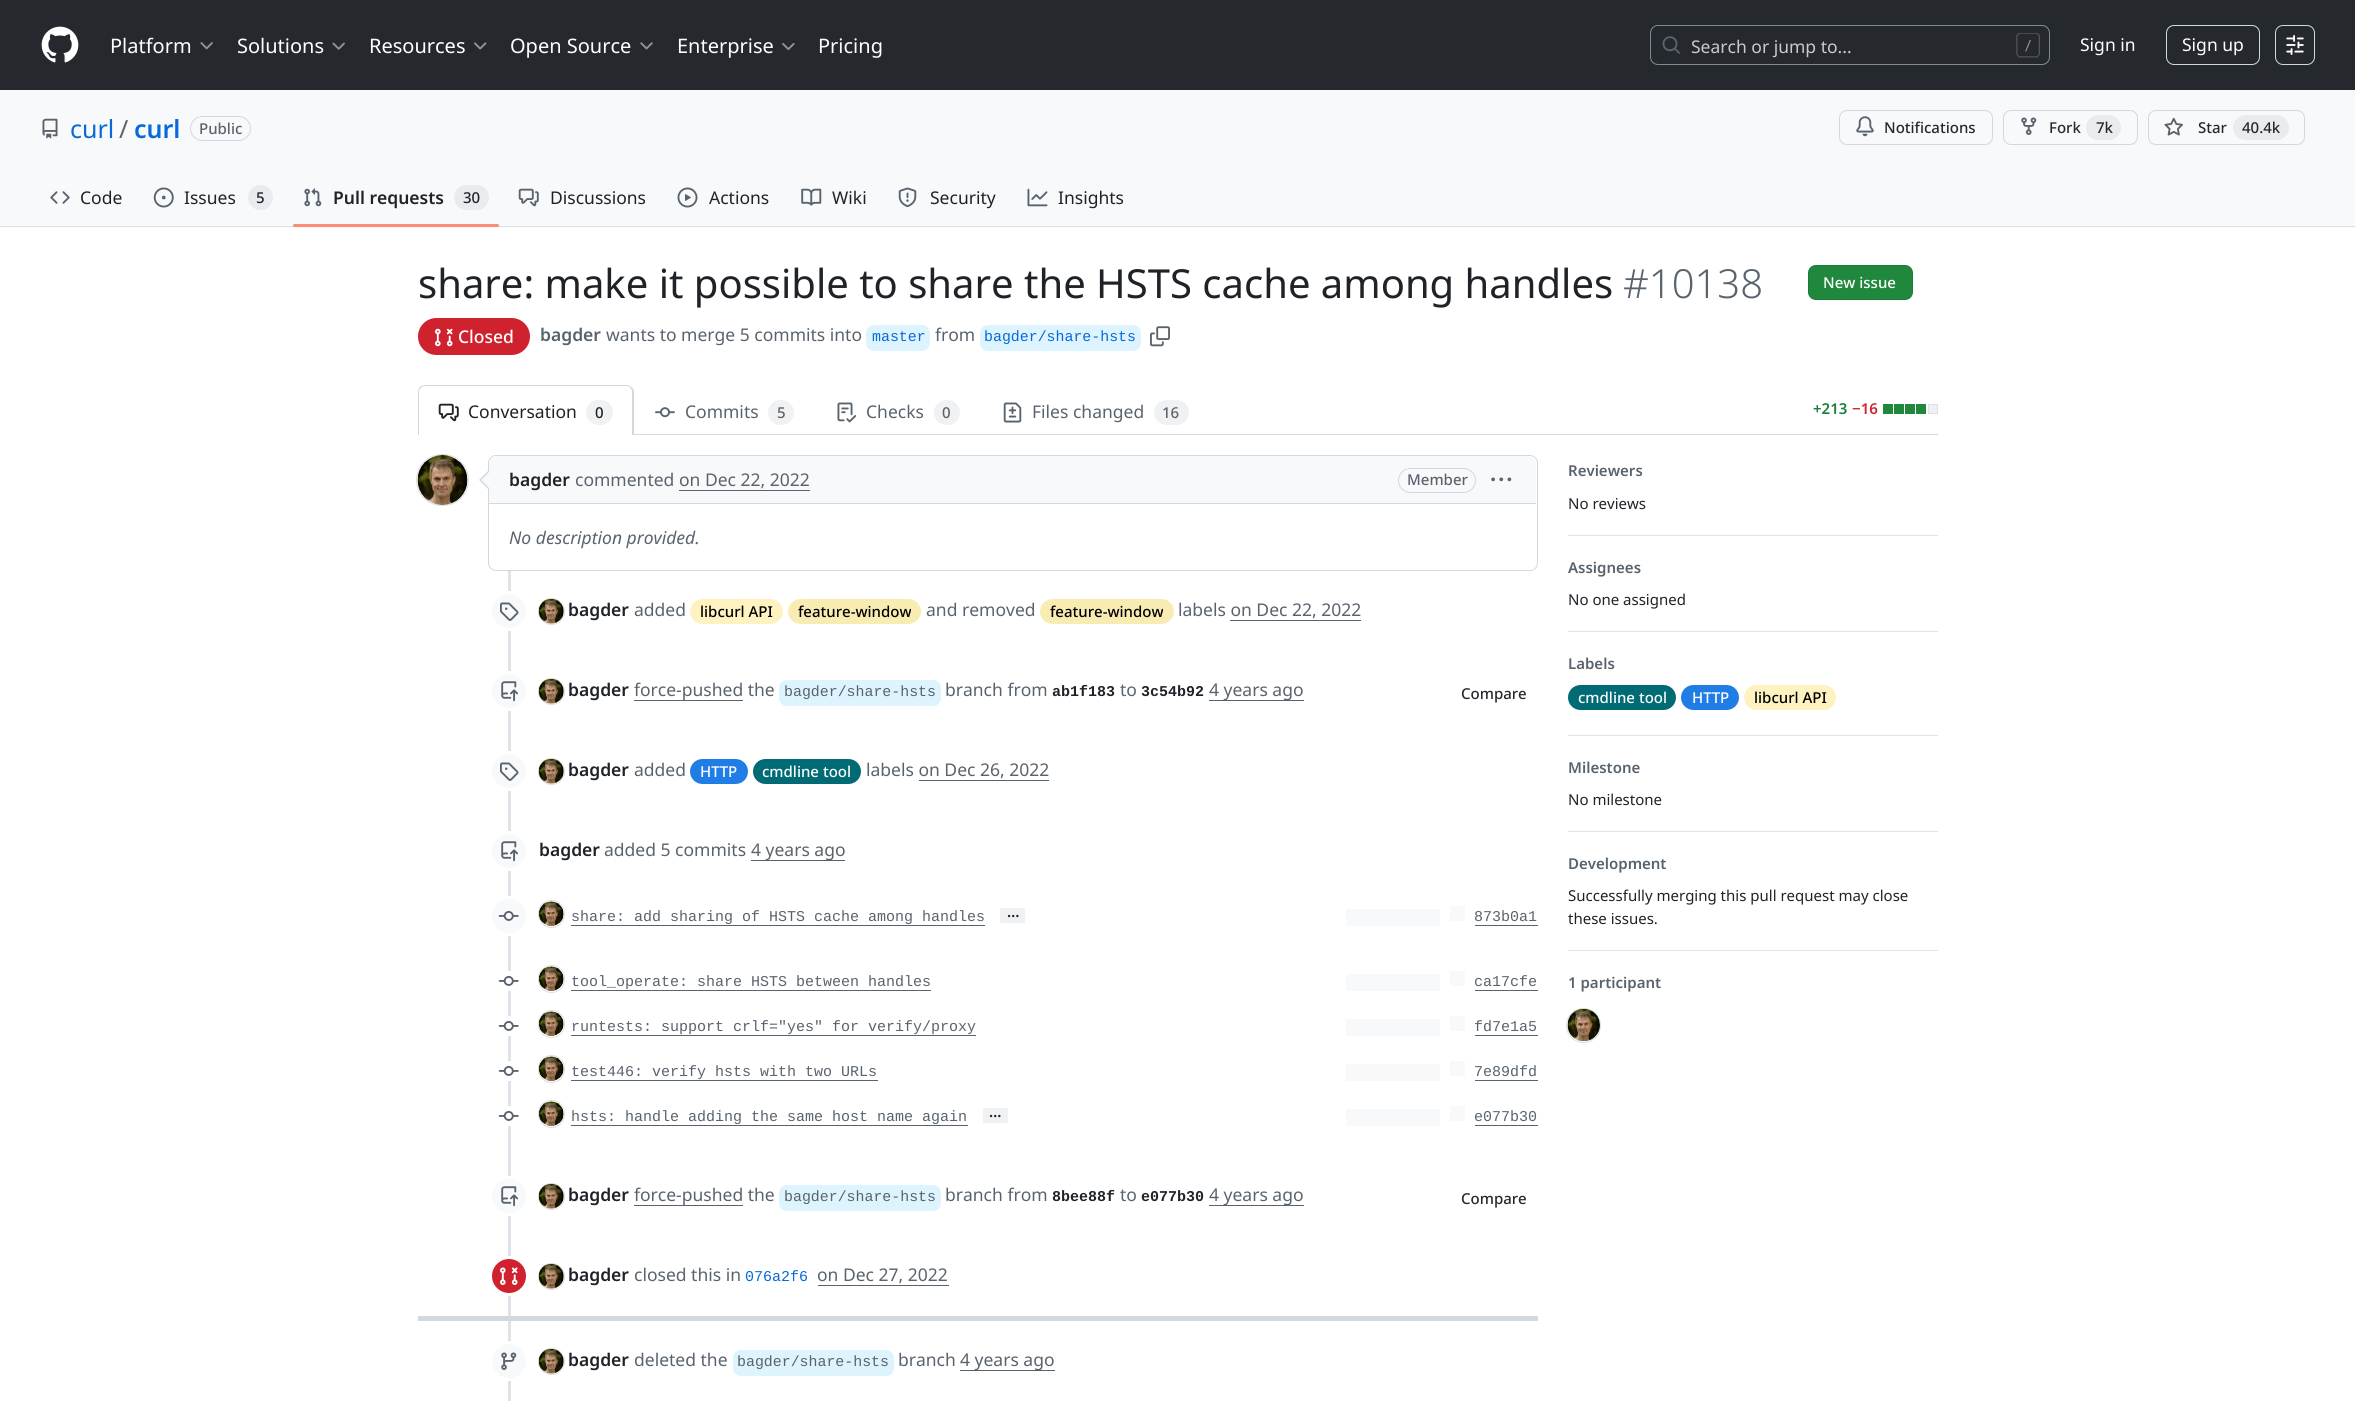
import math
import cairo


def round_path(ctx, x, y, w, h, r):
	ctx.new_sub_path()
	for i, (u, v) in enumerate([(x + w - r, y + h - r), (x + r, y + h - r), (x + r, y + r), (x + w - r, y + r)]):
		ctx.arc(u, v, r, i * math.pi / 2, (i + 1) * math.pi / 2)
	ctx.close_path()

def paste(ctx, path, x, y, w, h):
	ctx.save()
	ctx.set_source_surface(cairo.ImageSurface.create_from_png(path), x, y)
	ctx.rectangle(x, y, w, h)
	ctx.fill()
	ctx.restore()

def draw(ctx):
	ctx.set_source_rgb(1, 1, 1)
	ctx.paint()
	ctx.set_source_rgb(0.145, 0.161, 0.18)
	ctx.rectangle(0, 0, 2355, 90)
	ctx.fill()
	paste(ctx, 'media/1.png', 41, 26, 38, 37)
	ctx.select_font_face('Noto Sans')
	ctx.set_font_size(20)
	ctx.set_source_rgb(1, 1, 1)
	ctx.move_to(110, 53)
	ctx.show_text('Platform')
	paste(ctx, 'media/2.png', 200, 42, 13, 8)
	ctx.move_to(237, 53)
	ctx.show_text('Solutions')
	paste(ctx, 'media/3.png', 332, 42, 13, 8)
	ctx.move_to(369, 53)
	ctx.show_text('Resources')
	paste(ctx, 'media/4.png', 474, 42, 13, 8)
	ctx.move_to(510, 53)
	ctx.show_text('Open Source')
	paste(ctx, 'media/5.png', 640, 42, 13, 8)
	ctx.move_to(677, 53)
	ctx.show_text('Enterprise')
	paste(ctx, 'media/6.png', 782, 43, 13, 7)
	ctx.move_to(818, 53)
	ctx.show_text('Pricing')
	round_path(ctx, 1650.5, 25.5, 399, 39, 7.5)
	ctx.set_source_rgb(0.506, 0.545, 0.596)
	ctx.set_line_width(1)
	ctx.stroke()
	paste(ctx, 'media/7.png', 1662, 36, 18, 18)
	ctx.set_font_size(17.5)
	ctx.set_source_rgb(0.788, 0.792, 0.796)
	ctx.move_to(1691, 53)
	ctx.show_text('Search or jump to...')
	paste(ctx, 'media/8.png', 2016, 33, 24, 25)
	ctx.set_source_rgb(1, 1, 1)
	ctx.move_to(2080, 51)
	ctx.show_text('Sign in')
	round_path(ctx, 2166.5, 25.5, 93, 39, 7.5)
	ctx.set_source_rgb(0.82, 0.851, 0.878)
	ctx.stroke()
	ctx.set_source_rgb(1, 1, 1)
	ctx.move_to(2182, 51)
	ctx.show_text('Sign up')
	round_path(ctx, 2275.5, 25.5, 39, 39, 7.5)
	ctx.set_source_rgb(0.82, 0.851, 0.878)
	ctx.stroke()
	paste(ctx, 'media/9.png', 2286, 35, 18, 20)
	ctx.set_source_rgb(0.965, 0.973, 0.98)
	ctx.rectangle(0, 90, 2355, 138)
	ctx.fill()
	paste(ctx, 'media/10.png', 42, 118, 16, 21)
	ctx.set_font_size(25)
	ctx.set_source_rgb(0.035, 0.412, 0.855)
	ctx.move_to(70, 138)
	ctx.show_text('curl')
	ctx.set_source_rgb(0.349, 0.388, 0.431)
	ctx.move_to(119, 138)
	ctx.show_text('/')
	ctx.select_font_face('Noto Sans SemiBold')
	ctx.set_source_rgb(0.035, 0.412, 0.855)
	ctx.move_to(134, 138)
	ctx.show_text('curl')
	round_path(ctx, 190.5, 116.5, 60, 24, 12)
	ctx.set_source_rgb(0.82, 0.851, 0.878)
	ctx.stroke()
	ctx.select_font_face('Noto Sans Medium')
	ctx.set_font_size(15)
	ctx.set_source_rgb(0.349, 0.388, 0.431)
	ctx.move_to(199, 134)
	ctx.show_text('Public')
	round_path(ctx, 1839.5, 110.5, 153, 34, 7.5)
	ctx.set_source_rgb(0.82, 0.851, 0.878)
	ctx.stroke()
	paste(ctx, 'media/11.png', 1856, 116, 18, 21)
	ctx.set_source_rgb(0.145, 0.161, 0.18)
	ctx.move_to(1884, 133)
	ctx.show_text('Notifications')
	round_path(ctx, 2003.5, 110.5, 134, 34, 7.5)
	ctx.set_source_rgb(0.82, 0.851, 0.878)
	ctx.stroke()
	paste(ctx, 'media/12.png', 2021, 117, 16, 18)
	ctx.set_source_rgb(0.145, 0.161, 0.18)
	ctx.move_to(2049, 133)
	ctx.show_text('Fork')
	ctx.set_source_rgb(0.91, 0.922, 0.933)
	round_path(ctx, 2086, 115, 35, 25, 12.5)
	ctx.fill()
	ctx.set_source_rgb(0.145, 0.161, 0.18)
	ctx.move_to(2096, 133)
	ctx.show_text('7k')
	round_path(ctx, 2148.5, 110.5, 156, 34, 7.5)
	ctx.set_source_rgb(0.82, 0.851, 0.878)
	ctx.stroke()
	paste(ctx, 'media/13.png', 2164, 117, 19, 19)
	ctx.set_source_rgb(0.145, 0.161, 0.18)
	ctx.move_to(2198, 133)
	ctx.show_text('Star')
	ctx.set_source_rgb(0.91, 0.922, 0.933)
	round_path(ctx, 2233, 115, 56, 25, 12.5)
	ctx.fill()
	ctx.set_source_rgb(0.145, 0.161, 0.18)
	ctx.move_to(2242, 133)
	ctx.show_text('40.4k')
	ctx.set_source_rgb(0.863, 0.886, 0.91)
	ctx.rectangle(0, 226, 2355, 1)
	ctx.fill()
	paste(ctx, 'media/14.png', 50, 191, 20, 13)
	ctx.select_font_face('Noto Sans')
	ctx.set_font_size(17.5)
	ctx.set_source_rgb(0.122, 0.137, 0.157)
	ctx.move_to(80, 204)
	ctx.show_text('Code')
	paste(ctx, 'media/15.png', 153, 187, 21, 21)
	ctx.move_to(184, 204)
	ctx.show_text('Issues')
	ctx.set_source_rgb(0.91, 0.922, 0.933)
	ctx.new_path()
	ctx.arc(260.5, 197.5, 12.5, 0, 2 * math.pi)
	ctx.fill()
	ctx.select_font_face('Noto Sans Medium')
	ctx.set_font_size(15)
	ctx.set_source_rgb(0.122, 0.137, 0.157)
	ctx.move_to(256, 203)
	ctx.show_text('5')
	paste(ctx, 'media/16.png', 304, 188, 18, 19)
	ctx.select_font_face('Noto Sans SemiBold')
	ctx.set_font_size(17.5)
	ctx.move_to(333, 204)
	ctx.show_text('Pull requests')
	ctx.set_source_rgb(0.91, 0.922, 0.933)
	round_path(ctx, 454, 185, 35, 25, 12.5)
	ctx.fill()
	ctx.select_font_face('Noto Sans Medium')
	ctx.set_font_size(15)
	ctx.set_source_rgb(0.122, 0.137, 0.157)
	ctx.move_to(463, 203)
	ctx.show_text('30')
	ctx.set_source_rgb(0.992, 0.549, 0.451)
	round_path(ctx, 293, 224, 206, 3, 1.5)
	ctx.fill()
	paste(ctx, 'media/17.png', 518, 188, 21, 19)
	ctx.select_font_face('Noto Sans')
	ctx.set_font_size(17.5)
	ctx.set_source_rgb(0.122, 0.137, 0.157)
	ctx.move_to(550, 204)
	ctx.show_text('Discussions')
	paste(ctx, 'media/18.png', 677, 187, 21, 21)
	ctx.move_to(709, 204)
	ctx.show_text('Actions')
	paste(ctx, 'media/19.png', 801, 188, 21, 18)
	ctx.move_to(832, 204)
	ctx.show_text('Wiki')
	paste(ctx, 'media/20.png', 898, 187, 19, 21)
	ctx.move_to(930, 204)
	ctx.show_text('Security')
	paste(ctx, 'media/21.png', 1027, 188, 21, 19)
	ctx.move_to(1058, 204)
	ctx.show_text('Insights')
	ctx.set_font_size(40)
	ctx.move_to(418, 298)
	ctx.show_text('share: make it possible to share the HSTS cache among handles')
	ctx.select_font_face('Noto Sans Light')
	ctx.set_source_rgb(0.349, 0.388, 0.431)
	ctx.move_to(1623, 298)
	ctx.show_text('#10138')
	ctx.set_source_rgb(0.122, 0.533, 0.239)
	round_path(ctx, 1808, 265, 105, 35, 8)
	ctx.fill()
	round_path(ctx, 1808.5, 265.5, 104, 34, 7.5)
	ctx.set_source_rgba(0.122, 0.137, 0.157, 0.15)
	ctx.stroke()
	ctx.select_font_face('Noto Sans Medium')
	ctx.set_font_size(15)
	ctx.set_source_rgb(1, 1, 1)
	ctx.move_to(1823, 288)
	ctx.show_text('New issue')
	ctx.set_source_rgb(0.812, 0.133, 0.18)
	round_path(ctx, 418, 318, 112, 37, 18.5)
	ctx.fill()
	paste(ctx, 'media/22.png', 435, 328, 18, 19)
	ctx.set_font_size(17.5)
	ctx.set_source_rgb(1, 1, 1)
	ctx.move_to(458, 343)
	ctx.show_text('Closed')
	ctx.select_font_face('Noto Sans SemiBold')
	ctx.set_source_rgb(0.349, 0.388, 0.431)
	ctx.move_to(540, 341)
	ctx.show_text('bagder')
	ctx.select_font_face('Noto Sans')
	ctx.move_to(606, 341)
	ctx.show_text('wants to merge 5 commits into')
	ctx.set_source_rgb(0.867, 0.957, 1)
	round_path(ctx, 866, 325, 64, 26, 8)
	ctx.fill()
	ctx.select_font_face('Liberation Mono')
	ctx.set_font_size(14.9)
	ctx.set_source_rgb(0.035, 0.412, 0.855)
	ctx.move_to(872, 341)
	ctx.show_text('master')
	ctx.select_font_face('Noto Sans')
	ctx.set_font_size(17.5)
	ctx.set_source_rgb(0.349, 0.388, 0.431)
	ctx.move_to(935, 341)
	ctx.show_text('from')
	ctx.set_source_rgb(0.867, 0.957, 1)
	round_path(ctx, 980, 325, 161, 26, 8)
	ctx.fill()
	ctx.select_font_face('Liberation Mono')
	ctx.set_font_size(14.9)
	ctx.set_source_rgb(0.035, 0.412, 0.855)
	ctx.move_to(984, 341)
	ctx.show_text('bagder/share-hsts')
	paste(ctx, 'media/23.png', 1150, 326, 20, 21)
	ctx.set_source_rgb(0.82, 0.851, 0.878)
	ctx.rectangle(634, 434, 1304, 1)
	ctx.fill()
	ctx.set_fill_rule(cairo.FILL_RULE_EVEN_ODD)
	ctx.new_path()
	ctx.move_to(425, 385)
	ctx.line_to(626, 385)
	ctx.curve_to(630, 385, 634, 388, 634, 392)
	ctx.line_to(634, 435)
	ctx.line_to(418, 435)
	ctx.line_to(418, 392)
	ctx.curve_to(418, 388, 421, 385, 425, 385)
	ctx.close_path()
	ctx.move_to(425, 386)
	ctx.line_to(626, 386)
	ctx.curve_to(630, 386, 632, 389, 632, 392)
	ctx.line_to(632, 435)
	ctx.line_to(419, 435)
	ctx.line_to(419, 392)
	ctx.curve_to(419, 389, 422, 386, 425, 386)
	ctx.close_path()
	ctx.fill()
	paste(ctx, 'media/24.png', 438, 403, 21, 19)
	ctx.select_font_face('Noto Sans')
	ctx.set_font_size(17.5)
	ctx.set_source_rgb(0.122, 0.137, 0.157)
	ctx.move_to(468, 418)
	ctx.show_text('Conversation')
	ctx.set_source_rgb(0.941, 0.945, 0.953)
	round_path(ctx, 586, 400, 27, 25, 12.5)
	ctx.fill()
	ctx.select_font_face('Noto Sans Medium')
	ctx.set_font_size(15)
	ctx.set_source_rgb(0.122, 0.137, 0.157)
	ctx.move_to(595, 418)
	ctx.show_text('0')
	paste(ctx, 'media/25.png', 655, 407, 20, 11)
	ctx.select_font_face('Noto Sans')
	ctx.set_font_size(17.5)
	ctx.set_source_rgb(0.349, 0.388, 0.431)
	ctx.move_to(685, 418)
	ctx.show_text('Commits')
	ctx.set_source_rgb(0.941, 0.945, 0.953)
	round_path(ctx, 768, 400, 26, 25, 12.5)
	ctx.fill()
	ctx.select_font_face('Noto Sans Medium')
	ctx.set_font_size(15)
	ctx.set_source_rgb(0.349, 0.388, 0.431)
	ctx.move_to(777, 418)
	ctx.show_text('5')
	paste(ctx, 'media/26.png', 837, 402, 20, 21)
	ctx.select_font_face('Noto Sans')
	ctx.set_font_size(17.5)
	ctx.move_to(866, 418)
	ctx.show_text('Checks')
	ctx.set_source_rgb(0.941, 0.945, 0.953)
	round_path(ctx, 934, 400, 26, 25, 12.5)
	ctx.fill()
	ctx.select_font_face('Noto Sans Medium')
	ctx.set_font_size(15)
	ctx.set_source_rgb(0.349, 0.388, 0.431)
	ctx.move_to(942, 418)
	ctx.show_text('0')
	paste(ctx, 'media/27.png', 1003, 402, 19, 21)
	ctx.select_font_face('Noto Sans')
	ctx.set_font_size(17.5)
	ctx.move_to(1032, 418)
	ctx.show_text('Files changed')
	ctx.set_source_rgb(0.941, 0.945, 0.953)
	round_path(ctx, 1154, 400, 35, 25, 12.5)
	ctx.fill()
	ctx.select_font_face('Noto Sans Medium')
	ctx.set_font_size(15)
	ctx.set_source_rgb(0.349, 0.388, 0.431)
	ctx.move_to(1162, 418)
	ctx.show_text('16')
	ctx.select_font_face('Noto Sans SemiBold')
	ctx.set_source_rgb(0.102, 0.498, 0.216)
	ctx.move_to(1813, 414)
	ctx.show_text('+213')
	ctx.set_source_rgb(0.82, 0.141, 0.184)
	ctx.move_to(1852, 414)
	ctx.show_text('−16')
	ctx.set_source_rgb(0.122, 0.533, 0.239)
	ctx.rectangle(1883, 404, 10, 10)
	ctx.rectangle(1894, 404, 10, 10)
	ctx.rectangle(1905, 404, 10, 10)
	ctx.rectangle(1916, 404, 10, 10)
	ctx.fill()
	ctx.set_source_rgb(0.941, 0.945, 0.953)
	ctx.rectangle(1928.5, 404.5, 9, 9)
	ctx.fill_preserve()
	ctx.set_source_rgb(0.855, 0.878, 0.902)
	ctx.stroke()
	round_path(ctx, 416.5, 454.5, 52, 51, 25.5)
	ctx.set_source_rgb(0.867, 0.871, 0.875)
	ctx.stroke()
	ctx.set_source_rgb(1, 1, 1)
	ctx.arc(443, 480, 25, 0, 2 * math.pi)
	ctx.fill()
	paste(ctx, 'media/28.png', 417, 455, 51, 50)
	round_path(ctx, 488.5, 455.5, 1049, 115, 7.5)
	ctx.set_source_rgb(0.82, 0.851, 0.878)
	ctx.stroke()
	ctx.set_fill_rule(cairo.FILL_RULE_WINDING)
	ctx.new_path()
	ctx.move_to(479, 480)
	ctx.line_to(489, 470)
	ctx.line_to(489, 490)
	ctx.close_path()
	ctx.fill()
	ctx.set_source_rgb(0.965, 0.973, 0.98)
	ctx.new_path()
	ctx.move_to(497, 456)
	ctx.line_to(1528, 456)
	ctx.curve_to(1532.5, 456, 1536, 459.5, 1536, 464)
	ctx.line_to(1536, 504)
	ctx.line_to(489, 504)
	ctx.line_to(489, 464)
	ctx.curve_to(489, 459.5, 492.5, 456, 497, 456)
	ctx.close_path()
	ctx.fill()
	ctx.new_path()
	ctx.move_to(481, 480)
	ctx.line_to(491, 470)
	ctx.line_to(491, 490)
	ctx.close_path()
	ctx.fill()
	ctx.set_source_rgb(0.82, 0.851, 0.878)
	ctx.rectangle(489, 503, 1047, 1)
	ctx.fill()
	ctx.set_font_size(17.5)
	ctx.set_source_rgb(0.122, 0.137, 0.157)
	ctx.move_to(509, 486)
	ctx.show_text('bagder')
	ctx.select_font_face('Noto Sans')
	ctx.set_source_rgb(0.349, 0.388, 0.431)
	ctx.move_to(575, 486)
	ctx.show_text('commented')
	ctx.move_to(679, 486)
	ctx.show_text('on Dec 22, 2022')
	ctx.rectangle(679, 490, 131, 1)
	ctx.fill()
	round_path(ctx, 1398.5, 468.5, 77, 24, 12)
	ctx.set_source_rgb(0.82, 0.851, 0.878)
	ctx.stroke()
	ctx.select_font_face('Noto Sans Medium')
	ctx.set_font_size(15)
	ctx.set_source_rgb(0.349, 0.388, 0.431)
	ctx.move_to(1407, 485)
	ctx.show_text('Member')
	paste(ctx, 'media/29.png', 1491, 477, 21, 5)
	ctx.select_font_face('Noto Sans', cairo.FONT_SLANT_ITALIC)
	ctx.set_font_size(17.5)
	ctx.move_to(509, 544)
	ctx.show_text('No description provided.')
	ctx.set_source_rgb(0.875, 0.894, 0.914)
	ctx.rectangle(508, 571, 3, 745)
	ctx.fill()
	ctx.set_source_rgb(0.965, 0.973, 0.98)
	ctx.arc(509, 611, 18.5, 0, 2 * math.pi)
	ctx.fill_preserve()
	ctx.set_source_rgb(1, 1, 1)
	ctx.set_line_width(3)
	ctx.stroke()
	paste(ctx, 'media/30.png', 500, 602, 19, 19)
	ctx.arc(551.5, 611.5, 13, 0, 2 * math.pi)
	ctx.set_source_rgb(0.867, 0.871, 0.875)
	ctx.set_line_width(1)
	ctx.stroke()
	ctx.set_source_rgb(1, 1, 1)
	ctx.arc(551.5, 611.5, 12.5, 0, 2 * math.pi)
	ctx.fill()
	paste(ctx, 'media/31.png', 538, 598, 26, 26)
	ctx.select_font_face('Noto Sans SemiBold')
	ctx.set_source_rgb(0.122, 0.137, 0.157)
	ctx.move_to(568, 616)
	ctx.show_text('bagder')
	ctx.select_font_face('Noto Sans')
	ctx.set_source_rgb(0.349, 0.388, 0.431)
	ctx.move_to(634, 616)
	ctx.show_text('added')
	ctx.set_source_rgb(0.996, 0.949, 0.753)
	round_path(ctx, 690, 599, 93, 25, 12.5)
	ctx.fill()
	ctx.select_font_face('Noto Sans Medium')
	ctx.set_font_size(15)
	ctx.set_source_rgb(0, 0, 0)
	ctx.move_to(700, 617)
	ctx.show_text('libcurl API')
	ctx.set_source_rgb(0.976, 0.925, 0.702)
	round_path(ctx, 788, 599, 133, 25, 12.5)
	ctx.fill()
	ctx.set_source_rgb(0, 0, 0)
	ctx.move_to(798, 617)
	ctx.show_text('feature-window')
	ctx.select_font_face('Noto Sans')
	ctx.set_font_size(17.5)
	ctx.set_source_rgb(0.349, 0.388, 0.431)
	ctx.move_to(926, 616)
	ctx.show_text('and removed')
	ctx.set_source_rgb(0.976, 0.925, 0.702)
	round_path(ctx, 1040, 599, 134, 25, 12.5)
	ctx.fill()
	ctx.select_font_face('Noto Sans Medium')
	ctx.set_font_size(15)
	ctx.set_source_rgb(0, 0, 0)
	ctx.move_to(1050, 617)
	ctx.show_text('feature-window')
	ctx.select_font_face('Noto Sans')
	ctx.set_font_size(17.5)
	ctx.set_source_rgb(0.349, 0.388, 0.431)
	ctx.move_to(1178, 616)
	ctx.show_text('labels on Dec 22, 2022')
	ctx.rectangle(1230, 620, 131, 1)
	ctx.fill()
	ctx.set_source_rgb(0.965, 0.973, 0.98)
	ctx.arc(509, 691, 18.5, 0, 2 * math.pi)
	ctx.fill_preserve()
	ctx.set_source_rgb(1, 1, 1)
	ctx.set_line_width(3)
	ctx.stroke()
	paste(ctx, 'media/32.png', 501, 681, 18, 21)
	ctx.arc(551.5, 691.5, 13, 0, 2 * math.pi)
	ctx.set_source_rgb(0.867, 0.871, 0.875)
	ctx.set_line_width(1)
	ctx.stroke()
	ctx.set_source_rgb(1, 1, 1)
	ctx.arc(551.5, 691.5, 12.5, 0, 2 * math.pi)
	ctx.fill()
	paste(ctx, 'media/31.png', 538, 678, 26, 26)
	ctx.select_font_face('Noto Sans SemiBold')
	ctx.set_source_rgb(0.122, 0.137, 0.157)
	ctx.move_to(568, 696)
	ctx.show_text('bagder')
	ctx.set_source_rgb(0.349, 0.388, 0.431)
	ctx.rectangle(634, 700, 109, 1)
	ctx.fill()
	ctx.select_font_face('Noto Sans')
	ctx.move_to(634, 696)
	ctx.show_text('force-pushed the')
	ctx.set_source_rgb(0.867, 0.957, 1)
	round_path(ctx, 779, 680, 162, 26, 8)
	ctx.fill()
	ctx.select_font_face('Liberation Mono')
	ctx.set_font_size(14.9)
	ctx.set_source_rgb(0.349, 0.388, 0.431)
	ctx.move_to(784, 696)
	ctx.show_text('bagder/share-hsts')
	ctx.select_font_face('Noto Sans')
	ctx.set_font_size(17.5)
	ctx.move_to(945, 696)
	ctx.show_text('branch from')
	ctx.select_font_face('Liberation Mono', cairo.FONT_SLANT_NORMAL, cairo.FONT_WEIGHT_BOLD)
	ctx.set_font_size(15)
	ctx.set_source_rgb(0.122, 0.137, 0.157)
	ctx.move_to(1052, 696)
	ctx.show_text('ab1f183')
	ctx.select_font_face('Noto Sans')
	ctx.set_font_size(17.5)
	ctx.set_source_rgb(0.349, 0.388, 0.431)
	ctx.move_to(1120, 696)
	ctx.show_text('to')
	ctx.select_font_face('Liberation Mono', cairo.FONT_SLANT_NORMAL, cairo.FONT_WEIGHT_BOLD)
	ctx.set_font_size(15)
	ctx.set_source_rgb(0.122, 0.137, 0.157)
	ctx.move_to(1141, 696)
	ctx.show_text('3c54b92')
	ctx.set_source_rgb(0.349, 0.388, 0.431)
	ctx.rectangle(1209, 700, 95, 1)
	ctx.fill()
	ctx.select_font_face('Noto Sans')
	ctx.set_font_size(17.5)
	ctx.move_to(1209, 696)
	ctx.show_text('4 years ago')
	ctx.select_font_face('Noto Sans Medium')
	ctx.set_font_size(15)
	ctx.set_source_rgb(0.145, 0.161, 0.18)
	ctx.move_to(1461, 699)
	ctx.show_text('Compare')
	ctx.set_source_rgb(0.965, 0.973, 0.98)
	ctx.new_path()
	ctx.arc(509, 771, 18.5, 0, 2 * math.pi)
	ctx.fill_preserve()
	ctx.set_source_rgb(1, 1, 1)
	ctx.set_line_width(3)
	ctx.stroke()
	paste(ctx, 'media/30.png', 500, 762, 19, 19)
	ctx.arc(551.5, 771.5, 13, 0, 2 * math.pi)
	ctx.set_source_rgb(0.867, 0.871, 0.875)
	ctx.set_line_width(1)
	ctx.stroke()
	ctx.set_source_rgb(1, 1, 1)
	ctx.arc(551.5, 771.5, 12.5, 0, 2 * math.pi)
	ctx.fill()
	paste(ctx, 'media/33.png', 538, 758, 26, 26)
	ctx.select_font_face('Noto Sans SemiBold')
	ctx.set_font_size(17.5)
	ctx.set_source_rgb(0.122, 0.137, 0.157)
	ctx.move_to(568, 776)
	ctx.show_text('bagder')
	ctx.select_font_face('Noto Sans')
	ctx.set_source_rgb(0.349, 0.388, 0.431)
	ctx.move_to(634, 776)
	ctx.show_text('added')
	ctx.set_source_rgb(0.125, 0.49, 0.898)
	round_path(ctx, 690, 759, 58, 25, 12.5)
	ctx.fill()
	ctx.select_font_face('Noto Sans Medium')
	ctx.set_font_size(15)
	ctx.set_source_rgb(1, 1, 1)
	ctx.move_to(700, 777)
	ctx.show_text('HTTP')
	ctx.set_source_rgb(0, 0.42, 0.459)
	round_path(ctx, 753, 759, 108, 25, 12.5)
	ctx.fill()
	ctx.set_source_rgb(1, 1, 1)
	ctx.move_to(762, 777)
	ctx.show_text('cmdline tool')
	ctx.select_font_face('Noto Sans')
	ctx.set_font_size(17.5)
	ctx.set_source_rgb(0.349, 0.388, 0.431)
	ctx.move_to(866, 776)
	ctx.show_text('labels on Dec 26, 2022')
	ctx.rectangle(919, 780, 130, 1)
	ctx.fill()
	ctx.set_source_rgb(0.965, 0.973, 0.98)
	ctx.arc(509, 851, 18.5, 0, 2 * math.pi)
	ctx.fill_preserve()
	ctx.set_source_rgb(1, 1, 1)
	ctx.set_line_width(3)
	ctx.stroke()
	paste(ctx, 'media/32.png', 501, 841, 18, 21)
	ctx.select_font_face('Noto Sans SemiBold')
	ctx.set_source_rgb(0.122, 0.137, 0.157)
	ctx.move_to(539, 856)
	ctx.show_text('bagder')
	ctx.select_font_face('Noto Sans')
	ctx.set_source_rgb(0.349, 0.388, 0.431)
	ctx.move_to(604, 856)
	ctx.show_text('added 5 commits')
	ctx.rectangle(751, 860, 94, 1)
	ctx.fill()
	ctx.move_to(751, 856)
	ctx.show_text('4 years ago')
	ctx.set_source_rgb(0.965, 0.973, 0.98)
	ctx.new_path()
	ctx.arc(509, 916, 18.5, 0, 2 * math.pi)
	ctx.fill_preserve()
	ctx.set_source_rgb(1, 1, 1)
	ctx.stroke()
	paste(ctx, 'media/34.png', 498, 910, 21, 11)
	round_path(ctx, 538.5, 900.5, 26, 27, 13)
	ctx.set_source_rgb(0.867, 0.871, 0.875)
	ctx.set_line_width(1)
	ctx.stroke()
	ctx.set_source_rgb(1, 1, 1)
	ctx.arc(551.5, 913.5, 12.5, 0, 2 * math.pi)
	ctx.fill()
	paste(ctx, 'media/35.png', 539, 901, 25, 25)
	ctx.select_font_face('Liberation Mono')
	ctx.set_font_size(15)
	ctx.set_source_rgb(0.349, 0.388, 0.431)
	ctx.move_to(571, 921)
	ctx.show_text('share: add sharing of HSTS cache among handles')
	ctx.rectangle(571, 925, 414, 1)
	ctx.fill()
	ctx.set_source_rgb(0.941, 0.945, 0.953)
	round_path(ctx, 1000, 908, 25, 15, 1)
	ctx.fill()
	ctx.select_font_face('Noto Sans SemiBold')
	ctx.set_source_rgb(0.122, 0.137, 0.157)
	ctx.move_to(1007, 917)
	ctx.show_text('…')
	ctx.set_source_rgb(0.965, 0.973, 0.98)
	ctx.rectangle(1346, 909, 94, 17)
	ctx.fill()
	ctx.rectangle(1450, 906, 15, 15)
	ctx.fill()
	ctx.select_font_face('Liberation Mono')
	ctx.set_source_rgb(0.349, 0.388, 0.431)
	ctx.move_to(1474, 921)
	ctx.show_text('873b0a1')
	ctx.rectangle(1475, 925, 63, 1)
	ctx.fill()
	ctx.set_source_rgb(1, 1, 1)
	ctx.new_path()
	ctx.move_to(509, 971)
	ctx.curve_to(520, 971, 529, 975.5, 529, 981)
	ctx.curve_to(529, 986.5, 520, 991, 509, 991)
	ctx.curve_to(498, 991, 489, 986.5, 489, 981)
	ctx.curve_to(489, 975.5, 498, 971, 509, 971)
	ctx.close_path()
	ctx.fill()
	paste(ctx, 'media/36.png', 498, 975, 21, 11)
	round_path(ctx, 538.5, 965.5, 26, 27, 13)
	ctx.set_source_rgb(0.867, 0.871, 0.875)
	ctx.stroke()
	ctx.set_source_rgb(1, 1, 1)
	ctx.arc(551.5, 978.5, 12.5, 0, 2 * math.pi)
	ctx.fill()
	paste(ctx, 'media/35.png', 539, 966, 25, 25)
	ctx.set_source_rgb(0.349, 0.388, 0.431)
	ctx.move_to(571, 986)
	ctx.show_text('tool_operate: share HSTS between handles')
	ctx.rectangle(571, 990, 360, 1)
	ctx.fill()
	ctx.set_source_rgb(0.965, 0.973, 0.98)
	ctx.rectangle(1346, 974, 94, 17)
	ctx.rectangle(1450, 971, 15, 15)
	ctx.fill()
	ctx.set_source_rgb(0.349, 0.388, 0.431)
	ctx.move_to(1474, 986)
	ctx.show_text('ca17cfe')
	ctx.rectangle(1475, 990, 63, 1)
	ctx.fill()
	ctx.set_source_rgb(1, 1, 1)
	ctx.new_path()
	ctx.move_to(509, 1016)
	ctx.curve_to(520, 1016, 529, 1020.5, 529, 1026)
	ctx.curve_to(529, 1031.5, 520, 1036, 509, 1036)
	ctx.curve_to(498, 1036, 489, 1031.5, 489, 1026)
	ctx.curve_to(489, 1020.5, 498, 1016, 509, 1016)
	ctx.close_path()
	ctx.fill()
	paste(ctx, 'media/36.png', 498, 1020, 21, 11)
	round_path(ctx, 538.5, 1010.5, 26, 27, 13)
	ctx.set_source_rgb(0.867, 0.871, 0.875)
	ctx.stroke()
	ctx.set_source_rgb(1, 1, 1)
	ctx.arc(551.5, 1023.5, 12.5, 0, 2 * math.pi)
	ctx.fill()
	paste(ctx, 'media/37.png', 539, 1011, 25, 25)
	ctx.set_source_rgb(0.349, 0.388, 0.431)
	ctx.move_to(571, 1031)
	ctx.show_text('runtests: support crlf="yes" for verify/proxy')
	ctx.rectangle(571, 1035, 405, 1)
	ctx.fill()
	ctx.set_source_rgb(0.965, 0.973, 0.98)
	ctx.rectangle(1346, 1019, 94, 17)
	ctx.rectangle(1450, 1016, 15, 15)
	ctx.fill()
	ctx.set_source_rgb(0.349, 0.388, 0.431)
	ctx.move_to(1474, 1031)
	ctx.show_text('fd7e1a5')
	ctx.rectangle(1475, 1035, 63, 1)
	ctx.fill()
	ctx.set_source_rgb(1, 1, 1)
	ctx.new_path()
	ctx.move_to(509, 1061)
	ctx.curve_to(520, 1061, 529, 1065.5, 529, 1071)
	ctx.curve_to(529, 1076.5, 520, 1081, 509, 1081)
	ctx.curve_to(498, 1081, 489, 1076.5, 489, 1071)
	ctx.curve_to(489, 1065.5, 498, 1061, 509, 1061)
	ctx.close_path()
	ctx.fill()
	paste(ctx, 'media/36.png', 498, 1065, 21, 11)
	round_path(ctx, 538.5, 1055.5, 26, 27, 13)
	ctx.set_source_rgb(0.867, 0.871, 0.875)
	ctx.stroke()
	ctx.set_source_rgb(1, 1, 1)
	ctx.arc(551.5, 1068.5, 12.5, 0, 2 * math.pi)
	ctx.fill()
	paste(ctx, 'media/35.png', 539, 1056, 25, 25)
	ctx.set_source_rgb(0.349, 0.388, 0.431)
	ctx.move_to(571, 1076)
	ctx.show_text('test446: verify hsts with two URLs')
	ctx.rectangle(571, 1080, 307, 1)
	ctx.fill()
	ctx.set_source_rgb(0.965, 0.973, 0.98)
	ctx.rectangle(1346, 1064, 94, 17)
	ctx.rectangle(1450, 1061, 15, 15)
	ctx.fill()
	ctx.set_source_rgb(0.349, 0.388, 0.431)
	ctx.move_to(1474, 1076)
	ctx.show_text('7e89dfd')
	ctx.rectangle(1475, 1080, 63, 1)
	ctx.fill()
	ctx.set_source_rgb(1, 1, 1)
	ctx.new_path()
	ctx.move_to(509, 1106)
	ctx.curve_to(520, 1106, 529, 1110.5, 529, 1116)
	ctx.curve_to(529, 1121.5, 520, 1126, 509, 1126)
	ctx.curve_to(498, 1126, 489, 1121.5, 489, 1116)
	ctx.curve_to(489, 1110.5, 498, 1106, 509, 1106)
	ctx.close_path()
	ctx.fill()
	paste(ctx, 'media/36.png', 498, 1110, 21, 11)
	round_path(ctx, 538.5, 1100.5, 26, 27, 13)
	ctx.set_source_rgb(0.867, 0.871, 0.875)
	ctx.stroke()
	ctx.set_source_rgb(1, 1, 1)
	ctx.arc(551.5, 1113.5, 12.5, 0, 2 * math.pi)
	ctx.fill()
	paste(ctx, 'media/35.png', 539, 1101, 25, 25)
	ctx.set_source_rgb(0.349, 0.388, 0.431)
	ctx.move_to(571, 1121)
	ctx.show_text('hsts: handle adding the same host name again')
	ctx.rectangle(571, 1125, 397, 1)
	ctx.fill()
	ctx.set_source_rgb(0.941, 0.945, 0.953)
	round_path(ctx, 983, 1108, 25, 15, 1)
	ctx.fill()
	ctx.select_font_face('Noto Sans SemiBold')
	ctx.set_source_rgb(0.122, 0.137, 0.157)
	ctx.move_to(989, 1117)
	ctx.show_text('…')
	ctx.set_source_rgb(0.965, 0.973, 0.98)
	ctx.rectangle(1346, 1109, 94, 17)
	ctx.fill()
	ctx.rectangle(1450, 1106, 15, 15)
	ctx.fill()
	ctx.select_font_face('Liberation Mono')
	ctx.set_source_rgb(0.349, 0.388, 0.431)
	ctx.move_to(1474, 1121)
	ctx.show_text('e077b30')
	ctx.rectangle(1475, 1125, 63, 1)
	ctx.fill()
	ctx.set_source_rgb(0.965, 0.973, 0.98)
	ctx.arc(509, 1196, 18.5, 0, 2 * math.pi)
	ctx.fill_preserve()
	ctx.set_source_rgb(1, 1, 1)
	ctx.set_line_width(3)
	ctx.stroke()
	paste(ctx, 'media/32.png', 501, 1186, 18, 21)
	ctx.arc(551.5, 1196.5, 13, 0, 2 * math.pi)
	ctx.set_source_rgb(0.867, 0.871, 0.875)
	ctx.set_line_width(1)
	ctx.stroke()
	ctx.set_source_rgb(1, 1, 1)
	ctx.arc(551.5, 1196.5, 12.5, 0, 2 * math.pi)
	ctx.fill()
	paste(ctx, 'media/31.png', 538, 1183, 26, 26)
	ctx.select_font_face('Noto Sans SemiBold')
	ctx.set_font_size(17.5)
	ctx.set_source_rgb(0.122, 0.137, 0.157)
	ctx.move_to(568, 1201)
	ctx.show_text('bagder')
	ctx.set_source_rgb(0.349, 0.388, 0.431)
	ctx.rectangle(634, 1205, 109, 1)
	ctx.fill()
	ctx.select_font_face('Noto Sans')
	ctx.move_to(634, 1201)
	ctx.show_text('force-pushed the')
	ctx.set_source_rgb(0.867, 0.957, 1)
	round_path(ctx, 779, 1185, 162, 26, 8)
	ctx.fill()
	ctx.select_font_face('Liberation Mono')
	ctx.set_font_size(14.9)
	ctx.set_source_rgb(0.349, 0.388, 0.431)
	ctx.move_to(784, 1201)
	ctx.show_text('bagder/share-hsts')
	ctx.select_font_face('Noto Sans')
	ctx.set_font_size(17.5)
	ctx.move_to(945, 1201)
	ctx.show_text('branch from')
	ctx.select_font_face('Liberation Mono', cairo.FONT_SLANT_NORMAL, cairo.FONT_WEIGHT_BOLD)
	ctx.set_font_size(15)
	ctx.set_source_rgb(0.122, 0.137, 0.157)
	ctx.move_to(1052, 1201)
	ctx.show_text('8bee88f')
	ctx.select_font_face('Noto Sans')
	ctx.set_font_size(17.5)
	ctx.set_source_rgb(0.349, 0.388, 0.431)
	ctx.move_to(1120, 1201)
	ctx.show_text('to')
	ctx.select_font_face('Liberation Mono', cairo.FONT_SLANT_NORMAL, cairo.FONT_WEIGHT_BOLD)
	ctx.set_font_size(15)
	ctx.set_source_rgb(0.122, 0.137, 0.157)
	ctx.move_to(1141, 1201)
	ctx.show_text('e077b30')
	ctx.set_source_rgb(0.349, 0.388, 0.431)
	ctx.rectangle(1209, 1205, 95, 1)
	ctx.fill()
	ctx.select_font_face('Noto Sans')
	ctx.set_font_size(17.5)
	ctx.move_to(1209, 1201)
	ctx.show_text('4 years ago')
	ctx.select_font_face('Noto Sans Medium')
	ctx.set_font_size(15)
	ctx.set_source_rgb(0.145, 0.161, 0.18)
	ctx.move_to(1461, 1204)
	ctx.show_text('Compare')
	ctx.set_source_rgb(0.812, 0.133, 0.18)
	ctx.new_path()
	ctx.arc(509, 1276, 18.5, 0, 2 * math.pi)
	ctx.fill_preserve()
	ctx.set_source_rgb(1, 1, 1)
	ctx.set_line_width(3)
	ctx.stroke()
	paste(ctx, 'media/38.png', 500, 1267, 18, 18)
	ctx.arc(551.5, 1276.5, 13, 0, 2 * math.pi)
	ctx.set_source_rgb(0.867, 0.871, 0.875)
	ctx.set_line_width(1)
	ctx.stroke()
	ctx.set_source_rgb(1, 1, 1)
	ctx.arc(551.5, 1276.5, 12.5, 0, 2 * math.pi)
	ctx.fill()
	paste(ctx, 'media/39.png', 538, 1263, 26, 26)
	ctx.select_font_face('Noto Sans SemiBold')
	ctx.set_font_size(17.5)
	ctx.set_source_rgb(0.122, 0.137, 0.157)
	ctx.move_to(568, 1281)
	ctx.show_text('bagder')
	ctx.select_font_face('Noto Sans')
	ctx.set_source_rgb(0.349, 0.388, 0.431)
	ctx.move_to(634, 1281)
	ctx.show_text('closed this in')
	ctx.select_font_face('Liberation Mono')
	ctx.set_font_size(15)
	ctx.set_source_rgb(0.035, 0.412, 0.855)
	ctx.move_to(745, 1281)
	ctx.show_text('076a2f6')
	ctx.select_font_face('Noto Sans')
	ctx.set_font_size(17.5)
	ctx.set_source_rgb(0.349, 0.388, 0.431)
	ctx.move_to(817, 1281)
	ctx.show_text('on Dec 27, 2022')
	ctx.rectangle(818, 1285, 131, 1)
	ctx.fill()
	ctx.set_source_rgb(0.82, 0.851, 0.878)
	ctx.rectangle(418, 1316, 1120, 5)
	ctx.fill()
	ctx.set_source_rgb(0.875, 0.894, 0.914)
	ctx.rectangle(508, 1321, 3, 80)
	ctx.fill()
	ctx.set_source_rgb(0.965, 0.973, 0.98)
	ctx.arc(509, 1361, 18.5, 0, 2 * math.pi)
	ctx.fill_preserve()
	ctx.set_source_rgb(1, 1, 1)
	ctx.set_line_width(3)
	ctx.stroke()
	paste(ctx, 'media/40.png', 501, 1352, 16, 18)
	ctx.arc(551.5, 1361.5, 13, 0, 2 * math.pi)
	ctx.set_source_rgb(0.867, 0.871, 0.875)
	ctx.set_line_width(1)
	ctx.stroke()
	ctx.set_source_rgb(1, 1, 1)
	ctx.arc(551.5, 1361.5, 12.5, 0, 2 * math.pi)
	ctx.fill()
	paste(ctx, 'media/31.png', 538, 1348, 26, 26)
	ctx.select_font_face('Noto Sans SemiBold')
	ctx.set_source_rgb(0.122, 0.137, 0.157)
	ctx.move_to(568, 1366)
	ctx.show_text('bagder')
	ctx.select_font_face('Noto Sans')
	ctx.set_source_rgb(0.349, 0.388, 0.431)
	ctx.move_to(634, 1366)
	ctx.show_text('deleted the')
	ctx.set_source_rgb(0.867, 0.957, 1)
	round_path(ctx, 733, 1350, 161, 26, 8)
	ctx.fill()
	ctx.select_font_face('Liberation Mono')
	ctx.set_font_size(14.9)
	ctx.set_source_rgb(0.349, 0.388, 0.431)
	ctx.move_to(737, 1366)
	ctx.show_text('bagder/share-hsts')
	ctx.select_font_face('Noto Sans')
	ctx.set_font_size(17.5)
	ctx.move_to(898, 1366)
	ctx.show_text('branch')
	ctx.rectangle(960, 1370, 95, 1)
	ctx.fill()
	ctx.move_to(960, 1366)
	ctx.show_text('4 years ago')
	ctx.select_font_face('Noto Sans SemiBold')
	ctx.set_font_size(15)
	ctx.move_to(1568, 476)
	ctx.show_text('Reviewers')
	ctx.select_font_face('Noto Sans')
	ctx.set_source_rgb(0.122, 0.137, 0.157)
	ctx.move_to(1568, 509)
	ctx.show_text('No reviews')
	ctx.set_source_rgb(0.875, 0.894, 0.914)
	ctx.rectangle(1568, 535, 370, 1)
	ctx.fill()
	ctx.select_font_face('Noto Sans SemiBold')
	ctx.set_source_rgb(0.349, 0.388, 0.431)
	ctx.move_to(1568, 573)
	ctx.show_text('Assignees')
	ctx.select_font_face('Noto Sans')
	ctx.set_source_rgb(0.122, 0.137, 0.157)
	ctx.move_to(1568, 605)
	ctx.show_text('No one assigned')
	ctx.set_source_rgb(0.875, 0.894, 0.914)
	ctx.rectangle(1568, 631, 370, 1)
	ctx.fill()
	ctx.select_font_face('Noto Sans SemiBold')
	ctx.set_source_rgb(0.349, 0.388, 0.431)
	ctx.move_to(1568, 669)
	ctx.show_text('Labels')
	ctx.set_source_rgb(0, 0.42, 0.459)
	round_path(ctx, 1568, 685, 108, 25, 12.5)
	ctx.fill()
	ctx.select_font_face('Noto Sans Medium')
	ctx.set_source_rgb(1, 1, 1)
	ctx.move_to(1578, 703)
	ctx.show_text('cmdline tool')
	ctx.set_source_rgb(0.125, 0.49, 0.898)
	round_path(ctx, 1681, 685, 58, 25, 12.5)
	ctx.fill()
	ctx.set_source_rgb(1, 1, 1)
	ctx.move_to(1692, 703)
	ctx.show_text('HTTP')
	ctx.set_source_rgb(0.996, 0.949, 0.753)
	round_path(ctx, 1744, 685, 92, 25, 12.5)
	ctx.fill()
	ctx.set_source_rgb(0, 0, 0)
	ctx.move_to(1754, 703)
	ctx.show_text('libcurl API')
	ctx.set_source_rgb(0.875, 0.894, 0.914)
	ctx.rectangle(1568, 735, 370, 1)
	ctx.fill()
	ctx.select_font_face('Noto Sans SemiBold')
	ctx.set_source_rgb(0.349, 0.388, 0.431)
	ctx.move_to(1568, 773)
	ctx.show_text('Milestone')
	ctx.select_font_face('Noto Sans')
	ctx.set_source_rgb(0.122, 0.137, 0.157)
	ctx.move_to(1568, 805)
	ctx.show_text('No milestone')
	ctx.set_source_rgb(0.875, 0.894, 0.914)
	ctx.rectangle(1568, 831, 370, 1)
	ctx.fill()
	ctx.select_font_face('Noto Sans SemiBold')
	ctx.set_source_rgb(0.349, 0.388, 0.431)
	ctx.move_to(1568, 869)
	ctx.show_text('Development')
	ctx.select_font_face('Noto Sans')
	ctx.set_source_rgb(0.122, 0.137, 0.157)
	ctx.move_to(1568, 901)
	ctx.show_text('Successfully merging this pull request may close')
	ctx.move_to(1568, 924)
	ctx.show_text('these issues.')
	ctx.set_source_rgb(0.875, 0.894, 0.914)
	ctx.rectangle(1568, 950, 370, 1)
	ctx.fill()
	ctx.select_font_face('Noto Sans SemiBold')
	ctx.set_source_rgb(0.349, 0.388, 0.431)
	ctx.move_to(1568, 988)
	ctx.show_text('1 participant')
	ctx.new_path()
	ctx.arc(1583.5, 1025.5, 17, 0, 2 * math.pi)
	ctx.set_source_rgb(0.867, 0.871, 0.875)
	ctx.stroke()
	ctx.set_source_rgb(1, 1, 1)
	ctx.arc(1584, 1025, 16, 0, 2 * math.pi)
	ctx.fill()
	paste(ctx, 'media/41.png', 1567, 1008, 33, 34)


surface = cairo.ImageSurface(cairo.FORMAT_RGB24, 2355, 1401)
ctx = cairo.Context(surface)
options = cairo.FontOptions()
options.set_hint_metrics(cairo.HINT_METRICS_OFF)
options.set_hint_style(cairo.HINT_STYLE_NONE)
ctx.set_font_options(options)
ctx.set_miter_limit(4)
draw(ctx)
surface.write_to_png('image.png')
